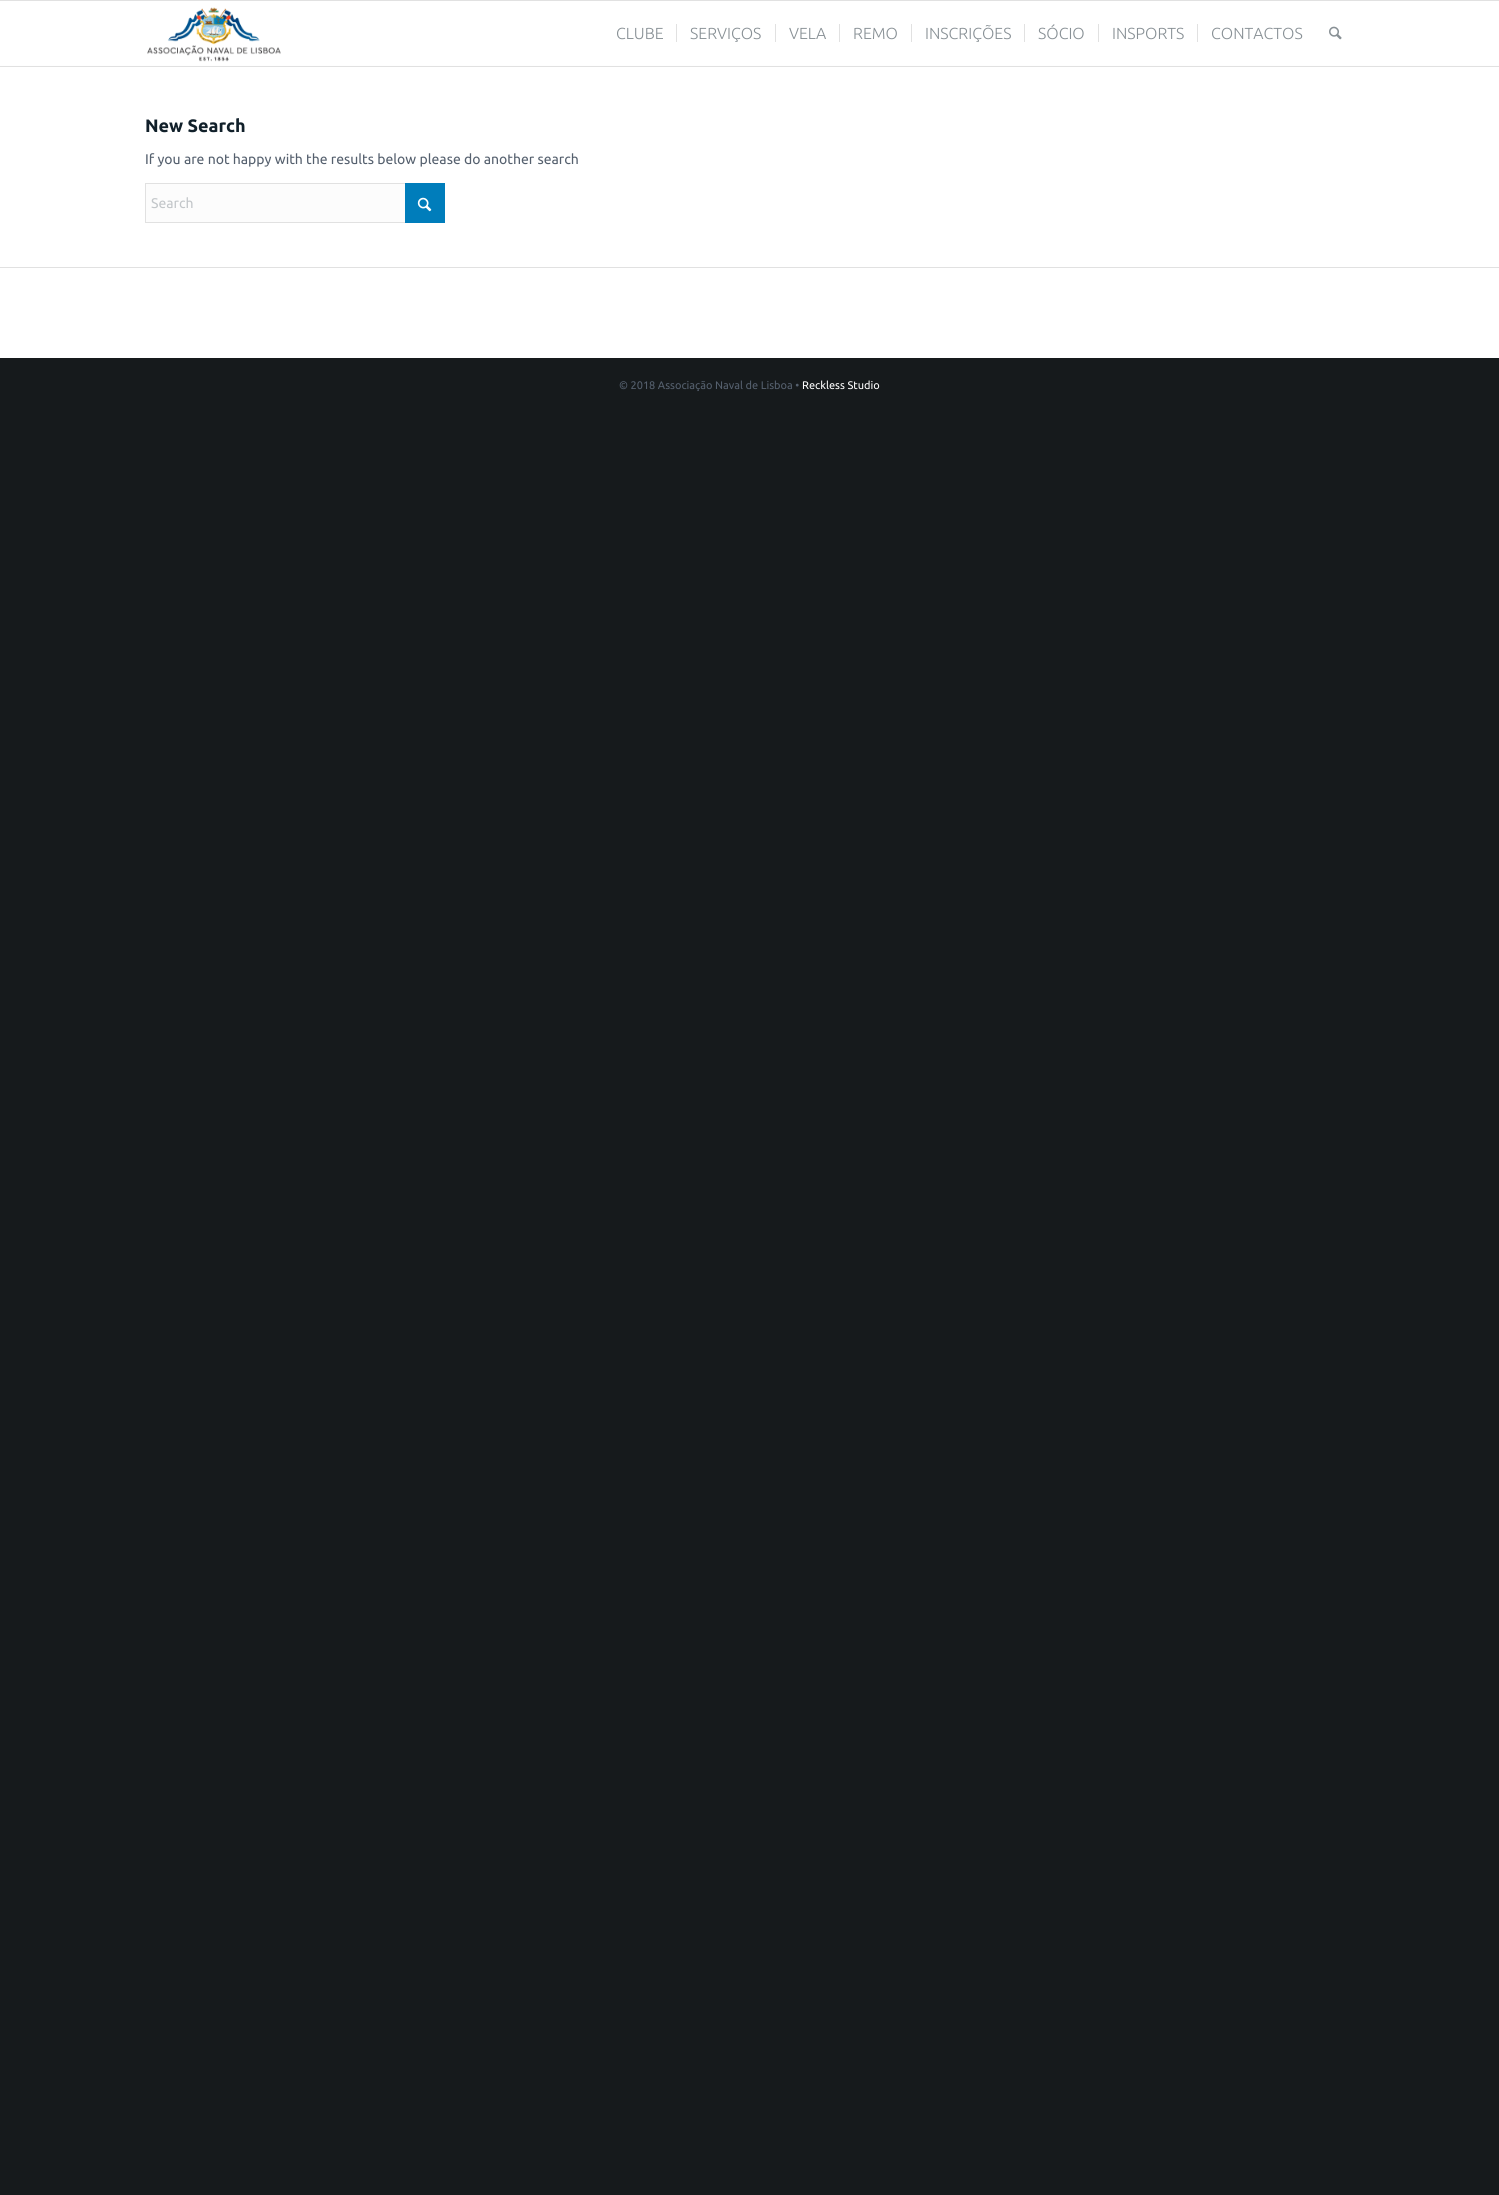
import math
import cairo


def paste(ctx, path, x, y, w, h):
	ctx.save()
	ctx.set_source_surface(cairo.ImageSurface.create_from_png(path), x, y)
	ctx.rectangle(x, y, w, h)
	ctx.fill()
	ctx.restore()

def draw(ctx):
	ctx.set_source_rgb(0.086, 0.102, 0.11)
	ctx.paint()
	ctx.set_source_rgb(1, 1, 1)
	ctx.rectangle(0, 67, 1499, 291)
	ctx.rectangle(0, 1, 1499, 64)
	ctx.fill()
	ctx.set_source_rgb(0.882, 0.882, 0.882)
	ctx.rectangle(0, 0, 1499, 1)
	ctx.rectangle(0, 66, 1499, 1)
	ctx.fill()
	paste(ctx, 'media/1.png', 147, 7, 134, 55)
	ctx.select_font_face('Ubuntu Light')
	ctx.set_font_size(16)
	ctx.set_source_rgb(0.533, 0.565, 0.584)
	ctx.move_to(616, 39)
	ctx.show_text('CLUBE')
	ctx.move_to(690, 39)
	ctx.show_text('SERVIÇOS')
	ctx.set_source_rgb(0.882, 0.882, 0.882)
	ctx.rectangle(676, 24, 1, 18)
	ctx.fill()
	ctx.set_source_rgb(0.533, 0.565, 0.584)
	ctx.move_to(789, 39)
	ctx.show_text('VELA')
	ctx.set_source_rgb(0.882, 0.882, 0.882)
	ctx.rectangle(775, 24, 1, 18)
	ctx.fill()
	ctx.set_source_rgb(0.533, 0.565, 0.584)
	ctx.move_to(853, 39)
	ctx.show_text('REMO')
	ctx.set_source_rgb(0.882, 0.882, 0.882)
	ctx.rectangle(839, 24, 1, 18)
	ctx.fill()
	ctx.set_source_rgb(0.533, 0.565, 0.584)
	ctx.move_to(925, 39)
	ctx.show_text('INSCRIÇÕES')
	ctx.set_source_rgb(0.882, 0.882, 0.882)
	ctx.rectangle(911, 24, 1, 18)
	ctx.fill()
	ctx.set_source_rgb(0.533, 0.565, 0.584)
	ctx.move_to(1038, 39)
	ctx.show_text('SÓCIO')
	ctx.set_source_rgb(0.882, 0.882, 0.882)
	ctx.rectangle(1024, 24, 1, 18)
	ctx.fill()
	ctx.set_source_rgb(0.533, 0.565, 0.584)
	ctx.move_to(1112, 39)
	ctx.show_text('INSPORTS')
	ctx.set_source_rgb(0.882, 0.882, 0.882)
	ctx.rectangle(1098, 24, 1, 18)
	ctx.fill()
	ctx.set_source_rgb(0.533, 0.565, 0.584)
	ctx.move_to(1211, 39)
	ctx.show_text('CONTACTOS')
	ctx.set_source_rgb(0.882, 0.882, 0.882)
	ctx.rectangle(1197, 24, 1, 18)
	ctx.fill()
	paste(ctx, 'media/2.png', 1329, 26, 13, 14)
	ctx.set_source_rgb(0.996, 0.996, 0.996)
	ctx.rectangle(0, 65, 1499, 1)
	ctx.fill()
	ctx.select_font_face('Ubuntu', cairo.FONT_SLANT_NORMAL, cairo.FONT_WEIGHT_BOLD)
	ctx.set_font_size(18)
	ctx.set_source_rgb(0.067, 0.125, 0.165)
	ctx.move_to(145, 132)
	ctx.show_text('New Search')
	ctx.select_font_face('Ubuntu')
	ctx.set_font_size(14)
	ctx.set_source_rgb(0.333, 0.376, 0.431)
	ctx.move_to(145, 164)
	ctx.show_text('If you are not happy with the results below please do another search')
	ctx.set_source_rgb(0.988, 0.988, 0.988)
	ctx.rectangle(146, 184, 259, 38)
	ctx.fill()
	ctx.rectangle(145.5, 183.5, 299, 39)
	ctx.set_source_rgb(0.882, 0.882, 0.882)
	ctx.set_line_width(1)
	ctx.stroke()
	ctx.set_source_rgb(0.761, 0.776, 0.788)
	ctx.move_to(151, 208)
	ctx.show_text('Search')
	ctx.set_source_rgb(0, 0.49, 0.733)
	ctx.rectangle(405, 183, 40, 40)
	ctx.fill()
	paste(ctx, 'media/3.png', 417, 197, 15, 15)
	ctx.set_source_rgb(0.882, 0.882, 0.882)
	ctx.rectangle(0, 267, 1499, 1)
	ctx.fill()
	ctx.set_font_size(11)
	ctx.set_source_rgb(0.333, 0.376, 0.431)
	ctx.move_to(619, 389)
	ctx.show_text('© 2018 Associação Naval de Lisboa •')
	ctx.set_source_rgb(1, 1, 1)
	ctx.move_to(802, 389)
	ctx.show_text('Reckless Studio')


surface = cairo.ImageSurface(cairo.FORMAT_RGB24, 1499, 2195)
ctx = cairo.Context(surface)
options = cairo.FontOptions()
options.set_hint_metrics(cairo.HINT_METRICS_OFF)
options.set_hint_style(cairo.HINT_STYLE_NONE)
ctx.set_font_options(options)
ctx.set_miter_limit(4)
draw(ctx)
surface.write_to_png('image.png')
